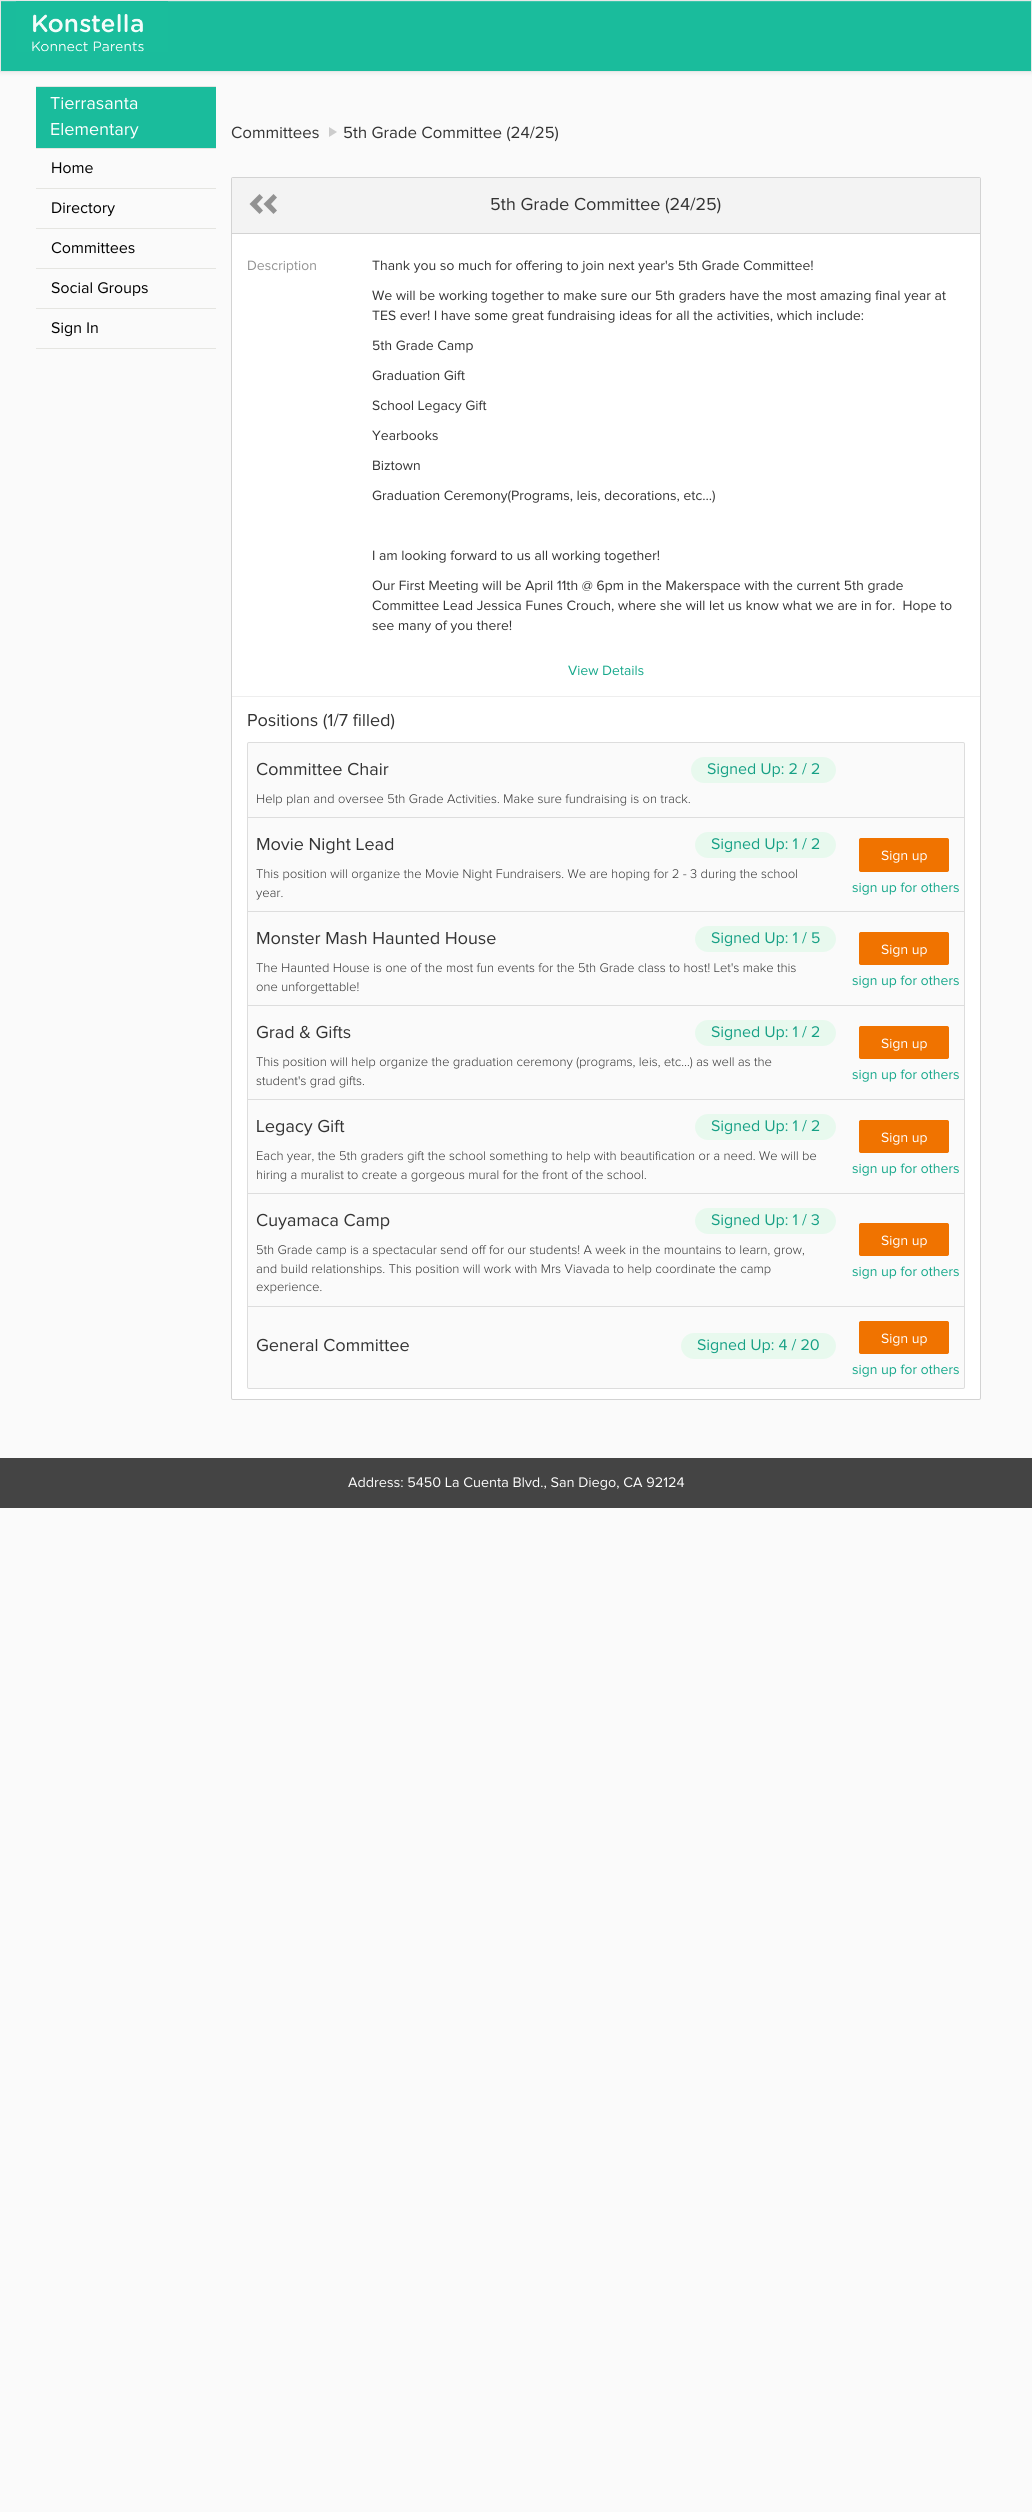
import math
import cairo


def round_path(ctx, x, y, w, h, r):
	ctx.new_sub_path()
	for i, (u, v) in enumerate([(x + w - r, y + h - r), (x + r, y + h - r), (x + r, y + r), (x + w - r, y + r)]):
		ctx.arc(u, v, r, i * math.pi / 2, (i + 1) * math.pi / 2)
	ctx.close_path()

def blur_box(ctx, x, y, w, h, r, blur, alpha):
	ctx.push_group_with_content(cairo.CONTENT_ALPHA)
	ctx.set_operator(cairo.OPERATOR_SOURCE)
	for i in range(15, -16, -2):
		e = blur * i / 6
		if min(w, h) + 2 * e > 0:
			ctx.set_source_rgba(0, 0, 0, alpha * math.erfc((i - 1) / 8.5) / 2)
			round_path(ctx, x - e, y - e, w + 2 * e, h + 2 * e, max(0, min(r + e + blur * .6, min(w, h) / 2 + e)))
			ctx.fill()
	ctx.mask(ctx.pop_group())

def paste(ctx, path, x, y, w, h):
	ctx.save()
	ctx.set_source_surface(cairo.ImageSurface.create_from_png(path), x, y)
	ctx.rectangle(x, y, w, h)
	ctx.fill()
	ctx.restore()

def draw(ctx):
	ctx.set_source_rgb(0.98, 0.98, 0.98)
	ctx.paint()
	ctx.set_source_rgb(0, 0, 0)
	blur_box(ctx, 0, 1, 1032, 72, 0, 2.5, 0.07)
	ctx.set_source_rgb(0.102, 0.737, 0.612)
	ctx.rectangle(1, 2, 1030, 69)
	ctx.fill()
	ctx.set_source_rgb(0.235, 0.776, 0.671)
	ctx.rectangle(1, 1, 1030, 1)
	ctx.fill()
	ctx.rectangle(0.5, 0.5, 1031, 71)
	ctx.set_source_rgb(0.906, 0.906, 0.906)
	ctx.set_line_width(1)
	ctx.stroke()
	paste(ctx, 'media/1.png', 16, 1, 152, 51)
	ctx.set_source_rgb(0.898, 0.898, 0.882)
	ctx.rectangle(36, 348, 180, 1)
	ctx.rectangle(36, 86, 180, 1)
	ctx.fill()
	ctx.set_source_rgb(0.102, 0.737, 0.612)
	ctx.rectangle(36, 87, 180, 61)
	ctx.fill()
	paste(ctx, 'media/2.png', 50, 97, 88, 13)
	paste(ctx, 'media/3.png', 51, 123, 88, 16)
	ctx.set_source_rgb(0.898, 0.898, 0.882)
	ctx.rectangle(36, 148, 180, 1)
	ctx.fill()
	paste(ctx, 'media/4.png', 52, 162, 41, 12)
	ctx.rectangle(36, 188, 180, 1)
	ctx.fill()
	paste(ctx, 'media/5.png', 52, 202, 63, 15)
	ctx.rectangle(36, 228, 180, 1)
	ctx.fill()
	paste(ctx, 'media/6.png', 51, 242, 84, 12)
	ctx.rectangle(36, 268, 180, 1)
	ctx.fill()
	paste(ctx, 'media/7.png', 51, 282, 97, 14)
	ctx.rectangle(36, 308, 180, 1)
	ctx.fill()
	paste(ctx, 'media/8.png', 51, 322, 47, 15)
	paste(ctx, 'media/9.png', 231, 126, 88, 13)
	ctx.set_source_rgb(0.8, 0.8, 0.8)
	ctx.new_path()
	ctx.move_to(329, 137)
	ctx.line_to(329, 127)
	ctx.line_to(337, 132)
	ctx.close_path()
	ctx.fill()
	paste(ctx, 'media/10.png', 344, 126, 214, 16)
	ctx.set_source_rgb(1, 1, 1)
	round_path(ctx, 231.5, 177.5, 749, 1222, 1.5)
	ctx.fill_preserve()
	ctx.set_source_rgb(0.827, 0.827, 0.827)
	ctx.stroke()
	ctx.set_source_rgb(0.953, 0.953, 0.953)
	ctx.rectangle(232, 178, 748, 55)
	ctx.fill()
	ctx.set_source_rgb(0.827, 0.827, 0.827)
	ctx.rectangle(232, 233, 748, 1)
	ctx.fill()
	ctx.set_source_rgb(0.573, 0.573, 0.573)
	ctx.new_path()
	ctx.move_to(263, 197.5)
	ctx.line_to(257, 204)
	ctx.line_to(263, 210.5)
	ctx.line_to(259.5, 214)
	ctx.line_to(249.5, 204)
	ctx.line_to(259.5, 194)
	ctx.close_path()
	ctx.move_to(277, 197.5)
	ctx.line_to(271, 204)
	ctx.line_to(277, 210.5)
	ctx.line_to(273.5, 214)
	ctx.line_to(263.5, 204)
	ctx.line_to(273.5, 194)
	ctx.close_path()
	ctx.fill()
	paste(ctx, 'media/11.png', 491, 197, 230, 17)
	paste(ctx, 'media/12.png', 248, 260, 68, 13)
	paste(ctx, 'media/13.png', 372, 260, 441, 13)
	paste(ctx, 'media/14.png', 372, 290, 574, 13)
	paste(ctx, 'media/15.png', 372, 310, 492, 13)
	paste(ctx, 'media/16.png', 373, 340, 100, 13)
	paste(ctx, 'media/17.png', 372, 370, 93, 11)
	paste(ctx, 'media/18.png', 372, 400, 115, 13)
	paste(ctx, 'media/19.png', 372, 430, 66, 11)
	paste(ctx, 'media/20.png', 373, 460, 47, 11)
	paste(ctx, 'media/21.png', 372, 490, 343, 13)
	paste(ctx, 'media/22.png', 373, 550, 287, 13)
	paste(ctx, 'media/23.png', 372, 580, 531, 13)
	paste(ctx, 'media/24.png', 372, 600, 580, 13)
	paste(ctx, 'media/25.png', 372, 620, 140, 13)
	paste(ctx, 'media/26.png', 568, 665, 76, 11)
	ctx.set_source_rgb(0.933, 0.933, 0.933)
	ctx.rectangle(232, 696, 748, 1)
	ctx.fill()
	paste(ctx, 'media/27.png', 248, 713, 147, 17)
	ctx.set_source_rgb(0.98, 0.98, 0.98)
	round_path(ctx, 247.5, 742.5, 717, 646, 1.5)
	ctx.fill_preserve()
	ctx.set_source_rgb(0.867, 0.867, 0.867)
	ctx.stroke()
	paste(ctx, 'media/28.png', 256, 762, 133, 14)
	ctx.set_source_rgb(0.91, 0.976, 0.933)
	round_path(ctx, 691, 757, 145, 26, 13)
	ctx.fill()
	paste(ctx, 'media/29.png', 707, 763, 113, 15)
	paste(ctx, 'media/30.png', 257, 794, 433, 12)
	ctx.set_source_rgb(0.867, 0.867, 0.867)
	ctx.rectangle(248, 817, 717, 1)
	ctx.fill()
	ctx.set_source_rgb(0.941, 0.451, 0)
	round_path(ctx, 859.5, 838.5, 89, 33, 1.5)
	ctx.fill_preserve()
	ctx.stroke()
	paste(ctx, 'media/31.png', 881, 850, 46, 13)
	paste(ctx, 'media/32.png', 852, 882, 107, 13)
	paste(ctx, 'media/33.png', 257, 838, 137, 16)
	ctx.set_source_rgb(0.91, 0.976, 0.933)
	round_path(ctx, 695, 832, 141, 26, 13)
	ctx.fill()
	paste(ctx, 'media/34.png', 711, 838, 109, 15)
	paste(ctx, 'media/35.png', 256, 869, 541, 12)
	paste(ctx, 'media/36.png', 256, 890, 27, 10)
	ctx.set_source_rgb(0.867, 0.867, 0.867)
	ctx.rectangle(248, 911, 717, 1)
	ctx.fill()
	ctx.set_source_rgb(0.941, 0.451, 0)
	round_path(ctx, 859.5, 932.5, 89, 32, 1.5)
	ctx.fill_preserve()
	ctx.stroke()
	paste(ctx, 'media/31.png', 881, 944, 46, 13)
	paste(ctx, 'media/32.png', 852, 975, 107, 13)
	paste(ctx, 'media/37.png', 257, 932, 239, 13)
	ctx.set_source_rgb(0.91, 0.976, 0.933)
	round_path(ctx, 695, 926, 141, 26, 13)
	ctx.fill()
	paste(ctx, 'media/38.png', 711, 932, 109, 15)
	paste(ctx, 'media/39.png', 256, 963, 540, 10)
	paste(ctx, 'media/40.png', 256, 982, 103, 12)
	ctx.set_source_rgb(0.867, 0.867, 0.867)
	ctx.rectangle(248, 1005, 717, 1)
	ctx.fill()
	ctx.set_source_rgb(0.941, 0.451, 0)
	round_path(ctx, 859.5, 1026.5, 89, 32, 1.5)
	ctx.fill_preserve()
	ctx.stroke()
	paste(ctx, 'media/31.png', 881, 1038, 46, 13)
	paste(ctx, 'media/32.png', 852, 1069, 107, 13)
	paste(ctx, 'media/41.png', 256, 1025, 95, 14)
	ctx.set_source_rgb(0.91, 0.976, 0.933)
	round_path(ctx, 695, 1020, 141, 26, 13)
	ctx.fill()
	paste(ctx, 'media/34.png', 711, 1026, 109, 15)
	paste(ctx, 'media/42.png', 256, 1057, 516, 12)
	paste(ctx, 'media/43.png', 256, 1076, 108, 12)
	ctx.set_source_rgb(0.867, 0.867, 0.867)
	ctx.rectangle(248, 1099, 717, 1)
	ctx.fill()
	ctx.set_source_rgb(0.941, 0.451, 0)
	round_path(ctx, 859.5, 1120.5, 89, 32, 1.5)
	ctx.fill_preserve()
	ctx.stroke()
	paste(ctx, 'media/31.png', 881, 1132, 46, 13)
	paste(ctx, 'media/32.png', 852, 1163, 107, 13)
	paste(ctx, 'media/44.png', 257, 1119, 88, 17)
	ctx.set_source_rgb(0.91, 0.976, 0.933)
	round_path(ctx, 695, 1114, 141, 26, 13)
	ctx.fill()
	paste(ctx, 'media/34.png', 711, 1120, 109, 15)
	paste(ctx, 'media/45.png', 257, 1151, 560, 12)
	paste(ctx, 'media/46.png', 257, 1170, 389, 12)
	ctx.set_source_rgb(0.867, 0.867, 0.867)
	ctx.rectangle(248, 1193, 717, 1)
	ctx.fill()
	ctx.set_source_rgb(0.941, 0.451, 0)
	round_path(ctx, 859.5, 1223.5, 89, 32, 1.5)
	ctx.fill_preserve()
	ctx.stroke()
	paste(ctx, 'media/31.png', 881, 1235, 46, 13)
	paste(ctx, 'media/32.png', 852, 1266, 107, 13)
	paste(ctx, 'media/47.png', 256, 1213, 134, 17)
	ctx.set_source_rgb(0.91, 0.976, 0.933)
	round_path(ctx, 695, 1208, 141, 26, 13)
	ctx.fill()
	paste(ctx, 'media/48.png', 711, 1214, 108, 15)
	paste(ctx, 'media/49.png', 257, 1245, 547, 12)
	paste(ctx, 'media/50.png', 256, 1264, 515, 12)
	paste(ctx, 'media/51.png', 256, 1282, 66, 12)
	ctx.set_source_rgb(0.867, 0.867, 0.867)
	ctx.rectangle(248, 1306, 717, 1)
	ctx.fill()
	ctx.set_source_rgb(0.941, 0.451, 0)
	round_path(ctx, 859.5, 1321.5, 89, 32, 1.5)
	ctx.fill_preserve()
	ctx.stroke()
	paste(ctx, 'media/31.png', 881, 1333, 46, 13)
	paste(ctx, 'media/32.png', 852, 1364, 107, 13)
	paste(ctx, 'media/52.png', 256, 1338, 153, 14)
	ctx.set_source_rgb(0.91, 0.976, 0.933)
	round_path(ctx, 681, 1333, 155, 26, 13)
	ctx.fill()
	paste(ctx, 'media/53.png', 697, 1339, 122, 15)
	ctx.set_source_rgb(0.267, 0.267, 0.267)
	ctx.rectangle(0, 1458, 1032, 50)
	ctx.fill()
	paste(ctx, 'media/54.png', 348, 1477, 337, 13)


surface = cairo.ImageSurface(cairo.FORMAT_RGB24, 1032, 2512)
ctx = cairo.Context(surface)
options = cairo.FontOptions()
options.set_hint_metrics(cairo.HINT_METRICS_OFF)
options.set_hint_style(cairo.HINT_STYLE_NONE)
ctx.set_font_options(options)
ctx.set_miter_limit(4)
draw(ctx)
surface.write_to_png('image.png')
